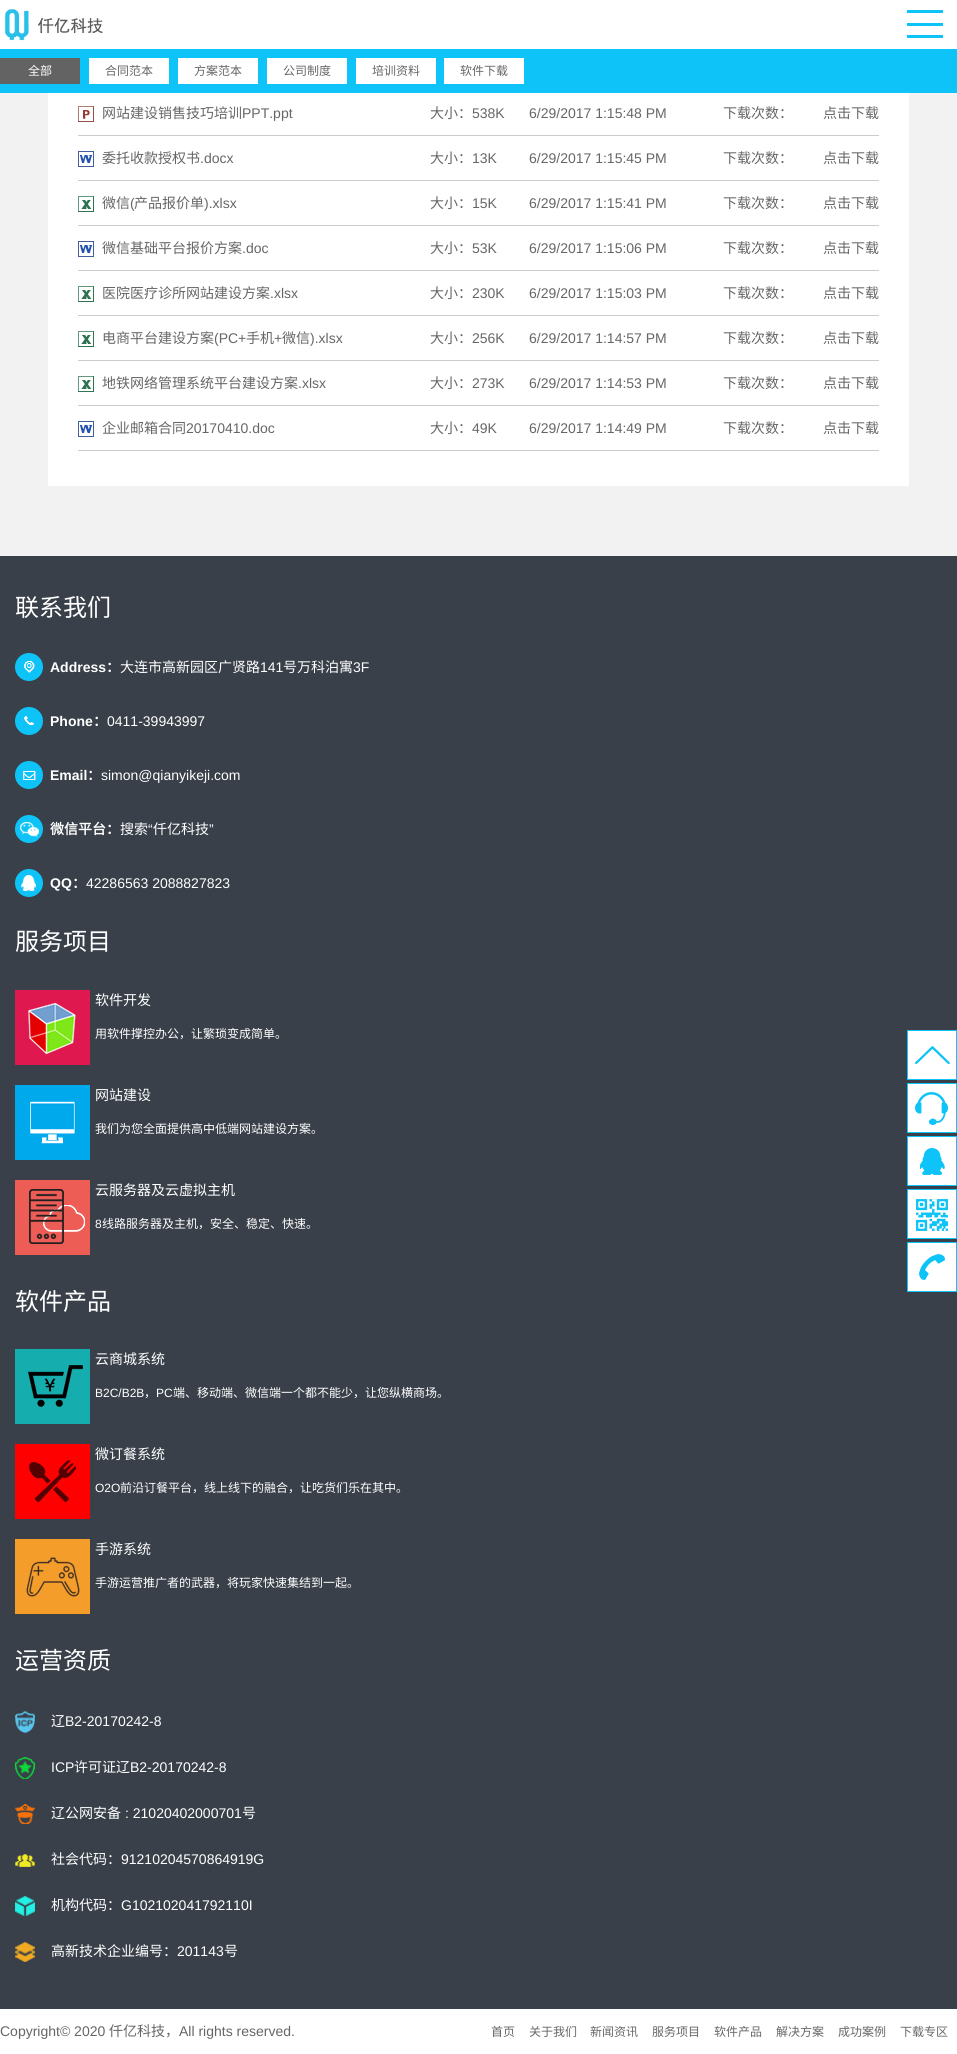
import math
import cairo


def paste(ctx, path, x, y, w, h):
	ctx.save()
	ctx.set_source_surface(cairo.ImageSurface.create_from_png(path), x, y)
	ctx.rectangle(x, y, w, h)
	ctx.fill()
	ctx.restore()

def draw(ctx):
	ctx.set_source_rgb(1, 1, 1)
	ctx.paint()
	paste(ctx, 'media/1.png', 4, 9, 99, 32)
	ctx.set_source_rgb(0.055, 0.765, 0.969)
	ctx.rectangle(907, 10, 36, 3)
	ctx.rectangle(907, 23, 36, 3)
	ctx.rectangle(907, 35, 36, 3)
	ctx.fill()
	ctx.set_source_rgb(0.949, 0.949, 0.949)
	ctx.rectangle(0, 93, 957, 463)
	ctx.fill()
	ctx.set_source_rgb(0.055, 0.765, 0.969)
	ctx.rectangle(0, 49, 957, 44)
	ctx.fill()
	ctx.set_source_rgb(0.388, 0.388, 0.388)
	ctx.rectangle(0, 58, 80, 26)
	ctx.fill()
	ctx.select_font_face('Noto Sans CJK SC')
	ctx.set_font_size(12)
	ctx.set_source_rgb(1, 1, 1)
	ctx.move_to(28, 75)
	ctx.show_text('全部')
	ctx.rectangle(89, 58, 80, 26)
	ctx.fill()
	ctx.set_source_rgb(0.4, 0.4, 0.4)
	ctx.move_to(105, 75)
	ctx.show_text('合同范本')
	ctx.set_source_rgb(1, 1, 1)
	ctx.rectangle(178, 58, 80, 26)
	ctx.fill()
	ctx.set_source_rgb(0.4, 0.4, 0.4)
	ctx.move_to(194, 75)
	ctx.show_text('方案范本')
	ctx.set_source_rgb(1, 1, 1)
	ctx.rectangle(267, 58, 80, 26)
	ctx.fill()
	ctx.set_source_rgb(0.4, 0.4, 0.4)
	ctx.move_to(283, 75)
	ctx.show_text('公司制度')
	ctx.set_source_rgb(1, 1, 1)
	ctx.rectangle(356, 58, 80, 26)
	ctx.fill()
	ctx.set_source_rgb(0.4, 0.4, 0.4)
	ctx.move_to(372, 75)
	ctx.show_text('培训资料')
	ctx.set_source_rgb(1, 1, 1)
	ctx.rectangle(444, 58, 80, 26)
	ctx.fill()
	ctx.set_source_rgb(0.4, 0.4, 0.4)
	ctx.move_to(460, 75)
	ctx.show_text('软件下载')
	ctx.set_source_rgb(1, 1, 1)
	ctx.rectangle(48, 93, 861, 393)
	ctx.fill()
	ctx.set_source_rgb(0.8, 0.8, 0.8)
	ctx.rectangle(78, 135, 801, 1)
	ctx.fill()
	paste(ctx, 'media/2.png', 78, 106, 16, 16)
	ctx.set_font_size(14)
	ctx.set_source_rgb(0.4, 0.4, 0.4)
	ctx.move_to(102, 118)
	ctx.show_text('网站建设销售技巧培训')
	ctx.select_font_face('Liberation Sans')
	ctx.move_to(242, 118)
	ctx.show_text('PPT.ppt')
	ctx.select_font_face('Noto Sans CJK SC')
	ctx.move_to(430, 118)
	ctx.show_text('大小：')
	ctx.select_font_face('Liberation Sans')
	ctx.move_to(472, 118)
	ctx.show_text('538K')
	ctx.move_to(529, 118)
	ctx.show_text('6/29/2017 1:15:48 PM')
	ctx.select_font_face('Noto Sans CJK SC')
	ctx.move_to(723, 118)
	ctx.show_text('下载次数：')
	ctx.move_to(823, 118)
	ctx.show_text('点击下载')
	ctx.set_source_rgb(0.8, 0.8, 0.8)
	ctx.rectangle(78, 180, 801, 1)
	ctx.fill()
	paste(ctx, 'media/3.png', 78, 151, 16, 16)
	ctx.set_source_rgb(0.4, 0.4, 0.4)
	ctx.move_to(102, 163)
	ctx.show_text('委托收款授权书')
	ctx.select_font_face('Liberation Sans')
	ctx.move_to(200, 163)
	ctx.show_text('.docx')
	ctx.select_font_face('Noto Sans CJK SC')
	ctx.move_to(430, 163)
	ctx.show_text('大小：')
	ctx.select_font_face('Liberation Sans')
	ctx.move_to(472, 163)
	ctx.show_text('13K')
	ctx.move_to(529, 163)
	ctx.show_text('6/29/2017 1:15:45 PM')
	ctx.select_font_face('Noto Sans CJK SC')
	ctx.move_to(723, 163)
	ctx.show_text('下载次数：')
	ctx.move_to(823, 163)
	ctx.show_text('点击下载')
	ctx.set_source_rgb(0.8, 0.8, 0.8)
	ctx.rectangle(78, 225, 801, 1)
	ctx.fill()
	paste(ctx, 'media/4.png', 78, 196, 16, 16)
	ctx.set_source_rgb(0.4, 0.4, 0.4)
	ctx.move_to(102, 208)
	ctx.show_text('微信')
	ctx.select_font_face('Liberation Sans')
	ctx.move_to(130, 208)
	ctx.show_text('(')
	ctx.select_font_face('Noto Sans CJK SC')
	ctx.move_to(134, 208)
	ctx.show_text('产品报价单')
	ctx.select_font_face('Liberation Sans')
	ctx.move_to(204, 208)
	ctx.show_text(').xlsx')
	ctx.select_font_face('Noto Sans CJK SC')
	ctx.move_to(430, 208)
	ctx.show_text('大小：')
	ctx.select_font_face('Liberation Sans')
	ctx.move_to(472, 208)
	ctx.show_text('15K')
	ctx.move_to(529, 208)
	ctx.show_text('6/29/2017 1:15:41 PM')
	ctx.select_font_face('Noto Sans CJK SC')
	ctx.move_to(723, 208)
	ctx.show_text('下载次数：')
	ctx.move_to(823, 208)
	ctx.show_text('点击下载')
	ctx.set_source_rgb(0.8, 0.8, 0.8)
	ctx.rectangle(78, 270, 801, 1)
	ctx.fill()
	paste(ctx, 'media/3.png', 78, 241, 16, 16)
	ctx.set_source_rgb(0.4, 0.4, 0.4)
	ctx.move_to(102, 253)
	ctx.show_text('微信基础平台报价方案')
	ctx.select_font_face('Liberation Sans')
	ctx.move_to(242, 253)
	ctx.show_text('.doc')
	ctx.select_font_face('Noto Sans CJK SC')
	ctx.move_to(430, 253)
	ctx.show_text('大小：')
	ctx.select_font_face('Liberation Sans')
	ctx.move_to(472, 253)
	ctx.show_text('53K')
	ctx.move_to(529, 253)
	ctx.show_text('6/29/2017 1:15:06 PM')
	ctx.select_font_face('Noto Sans CJK SC')
	ctx.move_to(723, 253)
	ctx.show_text('下载次数：')
	ctx.move_to(823, 253)
	ctx.show_text('点击下载')
	ctx.set_source_rgb(0.8, 0.8, 0.8)
	ctx.rectangle(78, 315, 801, 1)
	ctx.fill()
	paste(ctx, 'media/4.png', 78, 286, 16, 16)
	ctx.set_source_rgb(0.4, 0.4, 0.4)
	ctx.move_to(102, 298)
	ctx.show_text('医院医疗诊所网站建设方案')
	ctx.select_font_face('Liberation Sans')
	ctx.move_to(270, 298)
	ctx.show_text('.xlsx')
	ctx.select_font_face('Noto Sans CJK SC')
	ctx.move_to(430, 298)
	ctx.show_text('大小：')
	ctx.select_font_face('Liberation Sans')
	ctx.move_to(472, 298)
	ctx.show_text('230K')
	ctx.move_to(529, 298)
	ctx.show_text('6/29/2017 1:15:03 PM')
	ctx.select_font_face('Noto Sans CJK SC')
	ctx.move_to(723, 298)
	ctx.show_text('下载次数：')
	ctx.move_to(823, 298)
	ctx.show_text('点击下载')
	ctx.set_source_rgb(0.8, 0.8, 0.8)
	ctx.rectangle(78, 360, 801, 1)
	ctx.fill()
	paste(ctx, 'media/4.png', 78, 331, 16, 16)
	ctx.set_source_rgb(0.4, 0.4, 0.4)
	ctx.move_to(102, 343)
	ctx.show_text('电商平台建设方案')
	ctx.select_font_face('Liberation Sans')
	ctx.move_to(214, 343)
	ctx.show_text('(PC+')
	ctx.select_font_face('Noto Sans CJK SC')
	ctx.move_to(246, 343)
	ctx.show_text('手机')
	ctx.select_font_face('Liberation Sans')
	ctx.move_to(274, 343)
	ctx.show_text('+')
	ctx.select_font_face('Noto Sans CJK SC')
	ctx.move_to(282, 343)
	ctx.show_text('微信')
	ctx.select_font_face('Liberation Sans')
	ctx.move_to(310, 343)
	ctx.show_text(').xlsx')
	ctx.select_font_face('Noto Sans CJK SC')
	ctx.move_to(430, 343)
	ctx.show_text('大小：')
	ctx.select_font_face('Liberation Sans')
	ctx.move_to(472, 343)
	ctx.show_text('256K')
	ctx.move_to(529, 343)
	ctx.show_text('6/29/2017 1:14:57 PM')
	ctx.select_font_face('Noto Sans CJK SC')
	ctx.move_to(723, 343)
	ctx.show_text('下载次数：')
	ctx.move_to(823, 343)
	ctx.show_text('点击下载')
	ctx.set_source_rgb(0.8, 0.8, 0.8)
	ctx.rectangle(78, 405, 801, 1)
	ctx.fill()
	paste(ctx, 'media/4.png', 78, 376, 16, 16)
	ctx.set_source_rgb(0.4, 0.4, 0.4)
	ctx.move_to(102, 388)
	ctx.show_text('地铁网络管理系统平台建设方案')
	ctx.select_font_face('Liberation Sans')
	ctx.move_to(298, 388)
	ctx.show_text('.xlsx')
	ctx.select_font_face('Noto Sans CJK SC')
	ctx.move_to(430, 388)
	ctx.show_text('大小：')
	ctx.select_font_face('Liberation Sans')
	ctx.move_to(472, 388)
	ctx.show_text('273K')
	ctx.move_to(529, 388)
	ctx.show_text('6/29/2017 1:14:53 PM')
	ctx.select_font_face('Noto Sans CJK SC')
	ctx.move_to(723, 388)
	ctx.show_text('下载次数：')
	ctx.move_to(823, 388)
	ctx.show_text('点击下载')
	ctx.set_source_rgb(0.8, 0.8, 0.8)
	ctx.rectangle(78, 450, 801, 1)
	ctx.fill()
	paste(ctx, 'media/3.png', 78, 421, 16, 16)
	ctx.set_source_rgb(0.4, 0.4, 0.4)
	ctx.move_to(102, 433)
	ctx.show_text('企业邮箱合同')
	ctx.select_font_face('Liberation Sans')
	ctx.move_to(186, 433)
	ctx.show_text('20170410.doc')
	ctx.select_font_face('Noto Sans CJK SC')
	ctx.move_to(430, 433)
	ctx.show_text('大小：')
	ctx.select_font_face('Liberation Sans')
	ctx.move_to(472, 433)
	ctx.show_text('49K')
	ctx.move_to(529, 433)
	ctx.show_text('6/29/2017 1:14:49 PM')
	ctx.select_font_face('Noto Sans CJK SC')
	ctx.move_to(723, 433)
	ctx.show_text('下载次数：')
	ctx.move_to(823, 433)
	ctx.show_text('点击下载')
	ctx.set_source_rgb(0.224, 0.251, 0.29)
	ctx.rectangle(0, 556, 957, 1453)
	ctx.fill()
	ctx.set_font_size(24)
	ctx.set_source_rgb(1, 1, 1)
	ctx.move_to(15, 616)
	ctx.show_text('联系我们')
	paste(ctx, 'media/5.png', 15, 653, 28, 28)
	ctx.select_font_face('Liberation Sans', cairo.FONT_SLANT_NORMAL, cairo.FONT_WEIGHT_BOLD)
	ctx.set_font_size(14)
	ctx.move_to(50, 672)
	ctx.show_text('Address')
	ctx.select_font_face('Noto Sans CJK SC', cairo.FONT_SLANT_NORMAL, cairo.FONT_WEIGHT_BOLD)
	ctx.move_to(106, 672)
	ctx.show_text('：')
	ctx.select_font_face('Noto Sans CJK SC')
	ctx.move_to(120, 672)
	ctx.show_text('大连市高新园区广贤路')
	ctx.select_font_face('Liberation Sans')
	ctx.move_to(260, 672)
	ctx.show_text('141')
	ctx.select_font_face('Noto Sans CJK SC')
	ctx.move_to(283, 672)
	ctx.show_text('号万科泊寓')
	ctx.select_font_face('Liberation Sans')
	ctx.move_to(353, 672)
	ctx.show_text('3F')
	paste(ctx, 'media/6.png', 15, 707, 28, 28)
	ctx.select_font_face('Liberation Sans', cairo.FONT_SLANT_NORMAL, cairo.FONT_WEIGHT_BOLD)
	ctx.move_to(50, 726)
	ctx.show_text('Phone')
	ctx.select_font_face('Noto Sans CJK SC', cairo.FONT_SLANT_NORMAL, cairo.FONT_WEIGHT_BOLD)
	ctx.move_to(93, 726)
	ctx.show_text('：')
	ctx.select_font_face('Liberation Sans')
	ctx.move_to(107, 726)
	ctx.show_text('0411-39943997')
	paste(ctx, 'media/7.png', 15, 761, 28, 28)
	ctx.select_font_face('Liberation Sans', cairo.FONT_SLANT_NORMAL, cairo.FONT_WEIGHT_BOLD)
	ctx.move_to(50, 780)
	ctx.show_text('Email')
	ctx.select_font_face('Noto Sans CJK SC', cairo.FONT_SLANT_NORMAL, cairo.FONT_WEIGHT_BOLD)
	ctx.move_to(87, 780)
	ctx.show_text('：')
	ctx.select_font_face('Liberation Sans')
	ctx.move_to(101, 780)
	ctx.show_text('simon@qianyikeji.com')
	paste(ctx, 'media/8.png', 15, 815, 28, 28)
	ctx.select_font_face('Noto Sans CJK SC', cairo.FONT_SLANT_NORMAL, cairo.FONT_WEIGHT_BOLD)
	ctx.move_to(50, 834)
	ctx.show_text('微信平台：')
	ctx.select_font_face('Noto Sans CJK SC')
	ctx.move_to(120, 834)
	ctx.show_text('搜索')
	ctx.select_font_face('Liberation Sans')
	ctx.move_to(148, 834)
	ctx.show_text('“')
	ctx.select_font_face('Noto Sans CJK SC')
	ctx.move_to(153, 834)
	ctx.show_text('仟亿科技')
	ctx.select_font_face('Liberation Sans')
	ctx.move_to(209, 834)
	ctx.show_text('”')
	paste(ctx, 'media/9.png', 15, 869, 28, 28)
	ctx.select_font_face('Liberation Sans', cairo.FONT_SLANT_NORMAL, cairo.FONT_WEIGHT_BOLD)
	ctx.move_to(50, 888)
	ctx.show_text('QQ')
	ctx.select_font_face('Noto Sans CJK SC', cairo.FONT_SLANT_NORMAL, cairo.FONT_WEIGHT_BOLD)
	ctx.move_to(72, 888)
	ctx.show_text('：')
	ctx.select_font_face('Liberation Sans')
	ctx.move_to(86, 888)
	ctx.show_text('42286563 2088827823')
	ctx.select_font_face('Noto Sans CJK SC')
	ctx.set_font_size(24)
	ctx.move_to(15, 950)
	ctx.show_text('服务项目')
	paste(ctx, 'media/10.png', 15, 990, 75, 75)
	ctx.set_font_size(14)
	ctx.move_to(95, 1005)
	ctx.show_text('软件开发')
	ctx.set_font_size(12)
	ctx.move_to(95, 1038)
	ctx.show_text('用软件撑控办公，让繁琐变成简单。')
	paste(ctx, 'media/11.png', 15, 1085, 75, 75)
	ctx.set_font_size(14)
	ctx.move_to(95, 1100)
	ctx.show_text('网站建设')
	ctx.set_font_size(12)
	ctx.move_to(95, 1133)
	ctx.show_text('我们为您全面提供高中低端网站建设方案。')
	paste(ctx, 'media/12.png', 15, 1180, 75, 75)
	ctx.set_font_size(14)
	ctx.move_to(95, 1195)
	ctx.show_text('云服务器及云虚拟主机')
	ctx.select_font_face('Liberation Sans')
	ctx.set_font_size(12)
	ctx.move_to(95, 1228)
	ctx.show_text('8')
	ctx.select_font_face('Noto Sans CJK SC')
	ctx.move_to(102, 1228)
	ctx.show_text('线路服务器及主机，安全、稳定、快速。')
	ctx.set_font_size(24)
	ctx.move_to(15, 1310)
	ctx.show_text('软件产品')
	paste(ctx, 'media/13.png', 15, 1349, 75, 75)
	ctx.set_font_size(14)
	ctx.move_to(95, 1364)
	ctx.show_text('云商城系统')
	ctx.select_font_face('Liberation Sans')
	ctx.set_font_size(12)
	ctx.move_to(95, 1397)
	ctx.show_text('B2C/B2B')
	ctx.select_font_face('Noto Sans CJK SC')
	ctx.move_to(144, 1397)
	ctx.show_text('，')
	ctx.select_font_face('Liberation Sans')
	ctx.move_to(156, 1397)
	ctx.show_text('PC')
	ctx.select_font_face('Noto Sans CJK SC')
	ctx.move_to(173, 1397)
	ctx.show_text('端、移动端、微信端一个都不能少，让您纵横商场。')
	paste(ctx, 'media/14.png', 15, 1444, 75, 75)
	ctx.set_font_size(14)
	ctx.move_to(95, 1459)
	ctx.show_text('微订餐系统')
	ctx.select_font_face('Liberation Sans')
	ctx.set_font_size(12)
	ctx.move_to(95, 1492)
	ctx.show_text('O2O')
	ctx.select_font_face('Noto Sans CJK SC')
	ctx.move_to(120, 1492)
	ctx.show_text('前沿订餐平台，线上线下的融合，让吃货们乐在其中。')
	paste(ctx, 'media/15.png', 15, 1539, 75, 75)
	ctx.set_font_size(14)
	ctx.move_to(95, 1554)
	ctx.show_text('手游系统')
	ctx.set_font_size(12)
	ctx.move_to(95, 1587)
	ctx.show_text('手游运营推广者的武器，将玩家快速集结到一起。')
	ctx.set_font_size(24)
	ctx.move_to(15, 1669)
	ctx.show_text('运营资质')
	paste(ctx, 'media/16.png', 15, 1711, 20, 22)
	ctx.set_font_size(14)
	ctx.move_to(51, 1726)
	ctx.show_text('辽')
	ctx.select_font_face('Liberation Sans')
	ctx.move_to(65, 1726)
	ctx.show_text('B2-20170242-8')
	paste(ctx, 'media/17.png', 15, 1757, 20, 22)
	ctx.move_to(51, 1772)
	ctx.show_text('ICP')
	ctx.select_font_face('Noto Sans CJK SC')
	ctx.move_to(74, 1772)
	ctx.show_text('许可证辽')
	ctx.select_font_face('Liberation Sans')
	ctx.move_to(130, 1772)
	ctx.show_text('B2-20170242-8')
	paste(ctx, 'media/18.png', 15, 1804, 20, 20)
	ctx.select_font_face('Noto Sans CJK SC')
	ctx.move_to(51, 1818)
	ctx.show_text('辽公网安备')
	ctx.select_font_face('Liberation Sans')
	ctx.move_to(125, 1818)
	ctx.show_text(': 21020402000701')
	ctx.select_font_face('Noto Sans CJK SC')
	ctx.move_to(242, 1818)
	ctx.show_text('号')
	paste(ctx, 'media/19.png', 15, 1854, 20, 13)
	ctx.move_to(51, 1864)
	ctx.show_text('社会代码：')
	ctx.select_font_face('Liberation Sans')
	ctx.move_to(121, 1864)
	ctx.show_text('91210204570864919G')
	paste(ctx, 'media/20.png', 15, 1896, 20, 20)
	ctx.select_font_face('Noto Sans CJK SC')
	ctx.move_to(51, 1910)
	ctx.show_text('机构代码：')
	ctx.select_font_face('Liberation Sans')
	ctx.move_to(121, 1910)
	ctx.show_text('G102102041792110I')
	paste(ctx, 'media/21.png', 15, 1942, 20, 20)
	ctx.select_font_face('Noto Sans CJK SC')
	ctx.move_to(51, 1956)
	ctx.show_text('高新技术企业编号：')
	ctx.select_font_face('Liberation Sans')
	ctx.move_to(177, 1956)
	ctx.show_text('201143')
	ctx.select_font_face('Noto Sans CJK SC')
	ctx.move_to(224, 1956)
	ctx.show_text('号')
	ctx.rectangle(908, 1031, 48, 48)
	ctx.fill()
	paste(ctx, 'media/22.png', 915, 1046, 35, 18)
	ctx.rectangle(907.5, 1030.5, 49, 49)
	ctx.set_source_rgb(0.055, 0.765, 0.969)
	ctx.set_line_width(1)
	ctx.stroke()
	ctx.set_source_rgb(1, 1, 1)
	ctx.rectangle(908, 1084, 48, 48)
	ctx.fill()
	paste(ctx, 'media/23.png', 915, 1092, 33, 33)
	ctx.rectangle(907.5, 1083.5, 49, 49)
	ctx.set_source_rgb(0.055, 0.765, 0.969)
	ctx.stroke()
	ctx.set_source_rgb(1, 1, 1)
	ctx.rectangle(908, 1137, 48, 48)
	ctx.fill()
	paste(ctx, 'media/24.png', 920, 1148, 25, 27)
	ctx.rectangle(907.5, 1136.5, 49, 49)
	ctx.set_source_rgb(0.055, 0.765, 0.969)
	ctx.stroke()
	ctx.set_source_rgb(1, 1, 1)
	ctx.rectangle(908, 1190, 48, 48)
	ctx.fill()
	paste(ctx, 'media/25.png', 916, 1199, 32, 32)
	ctx.rectangle(907.5, 1189.5, 49, 49)
	ctx.set_source_rgb(0.055, 0.765, 0.969)
	ctx.stroke()
	ctx.set_source_rgb(1, 1, 1)
	ctx.rectangle(908, 1243, 48, 48)
	ctx.fill()
	paste(ctx, 'media/26.png', 919, 1254, 26, 26)
	ctx.rectangle(907.5, 1242.5, 49, 49)
	ctx.set_source_rgb(0.055, 0.765, 0.969)
	ctx.stroke()
	ctx.select_font_face('Liberation Sans')
	ctx.set_source_rgb(0.4, 0.4, 0.4)
	ctx.move_to(0, 2036)
	ctx.show_text('Copyright© 2020')
	ctx.select_font_face('Noto Sans CJK SC')
	ctx.move_to(109, 2036)
	ctx.show_text('仟亿科技，')
	ctx.select_font_face('Liberation Sans')
	ctx.move_to(179, 2036)
	ctx.show_text('All rights reserved.')
	ctx.select_font_face('Noto Sans CJK SC')
	ctx.set_font_size(12)
	for x, y, s in [
		(491, 2036, '首页'),
		(529, 2036, '关于我们'),
		(590, 2036, '新闻资讯'),
		(652, 2036, '服务项目'),
		(714, 2036, '软件产品'),
		(776, 2036, '解决方案'),
		(838, 2036, '成功案例'),
		(900, 2036, '下载专区'),
	]:
		ctx.move_to(x, y)
		ctx.show_text(s)


surface = cairo.ImageSurface(cairo.FORMAT_RGB24, 957, 2054)
ctx = cairo.Context(surface)
options = cairo.FontOptions()
options.set_hint_metrics(cairo.HINT_METRICS_OFF)
options.set_hint_style(cairo.HINT_STYLE_NONE)
ctx.set_font_options(options)
ctx.set_miter_limit(4)
draw(ctx)
surface.write_to_png('image.png')
